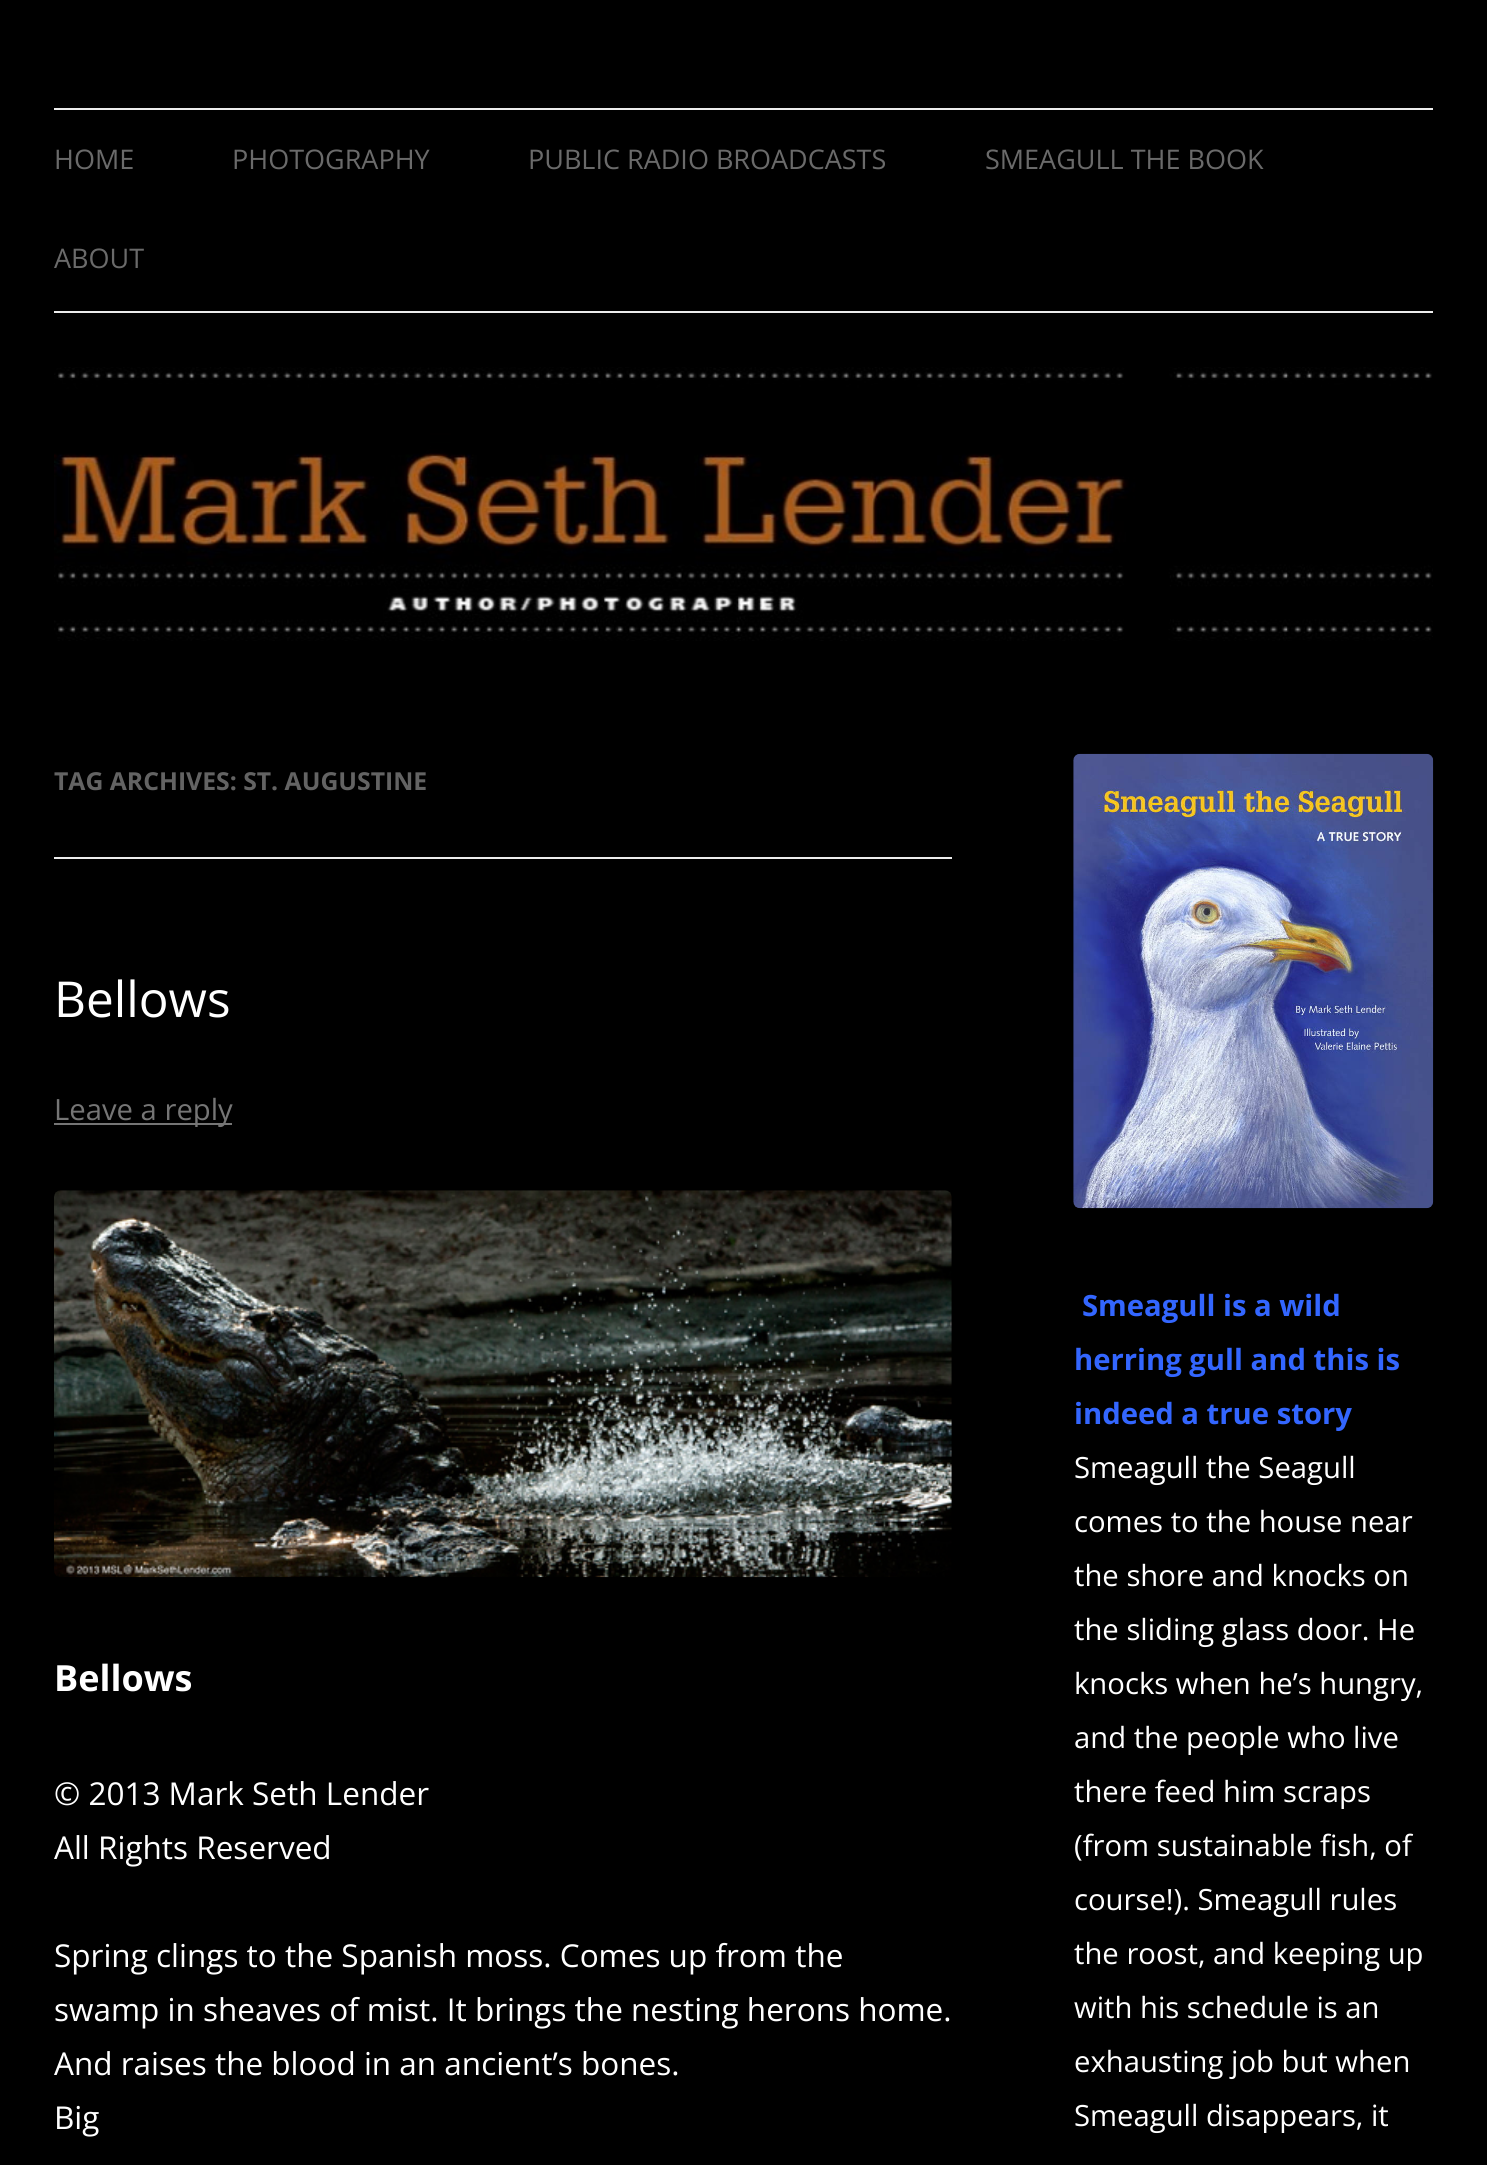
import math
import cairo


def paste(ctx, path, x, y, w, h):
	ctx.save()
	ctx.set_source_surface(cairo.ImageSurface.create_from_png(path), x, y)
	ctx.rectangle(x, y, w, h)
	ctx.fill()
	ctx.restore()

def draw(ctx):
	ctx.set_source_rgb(0, 0, 0)
	ctx.paint()
	ctx.set_source_rgb(0.929, 0.929, 0.929)
	ctx.rectangle(54, 108, 1379, 2)
	ctx.fill()
	ctx.rectangle(54, 311, 1379, 2)
	ctx.fill()
	ctx.select_font_face('Open Sans')
	ctx.set_font_size(27)
	ctx.set_source_rgb(0.416, 0.416, 0.416)
	for x, y, s in [
		(54, 169, 'HOME'),
		(232, 169, 'PHOTOGRAPHY'),
		(528, 169, 'PUBLIC RADIO BROADCASTS'),
		(985, 169, 'SMEAGULL THE BOOK'),
		(54, 268, 'ABOUT'),
	]:
		ctx.move_to(x, y)
		ctx.show_text(s)
	paste(ctx, 'media/1.png', 54, 367, 1379, 274)
	ctx.set_source_rgb(0.929, 0.929, 0.929)
	ctx.rectangle(54, 857, 898, 2)
	ctx.fill()
	ctx.select_font_face('Open Sans', cairo.FONT_SLANT_NORMAL, cairo.FONT_WEIGHT_BOLD)
	ctx.set_font_size(24.75)
	ctx.set_source_rgb(0.388, 0.388, 0.388)
	ctx.move_to(54, 790)
	ctx.show_text('TAG ARCHIVES: ST. AUGUSTINE')
	ctx.select_font_face('Open Sans')
	ctx.set_font_size(49.5)
	ctx.set_source_rgb(1, 1, 1)
	ctx.move_to(54, 1017)
	ctx.show_text('Bellows')
	ctx.set_source_rgb(0.459, 0.459, 0.459)
	ctx.rectangle(54, 1123, 178, 2)
	ctx.fill()
	ctx.set_font_size(29.25)
	ctx.move_to(54, 1120)
	ctx.show_text('Leave a reply')
	paste(ctx, 'media/2.png', 54, 1190, 898, 388)
	ctx.select_font_face('Open Sans', cairo.FONT_SLANT_NORMAL, cairo.FONT_WEIGHT_BOLD)
	ctx.set_font_size(36)
	ctx.set_source_rgb(1, 1, 1)
	ctx.move_to(54, 1691)
	ctx.show_text('Bellows')
	ctx.select_font_face('Open Sans')
	ctx.set_font_size(31.5)
	for x, y, s in [
		(54, 1805, '© 2013 Mark Seth Lender'),
		(54, 1859, 'All Rights Reserved'),
		(54, 1967, 'Spring clings to the Spanish moss. Comes up from the'),
		(54, 2021, 'swamp in sheaves of mist. It brings the nesting herons home.'),
		(54, 2075, 'And raises the blood in an ancient’s bones.'),
		(54, 2129, 'Big'),
	]:
		ctx.move_to(x, y)
		ctx.show_text(s)
	paste(ctx, 'media/3.png', 1073, 753, 361, 456)
	ctx.select_font_face('Open Sans', cairo.FONT_SLANT_NORMAL, cairo.FONT_WEIGHT_BOLD)
	ctx.set_font_size(29.25)
	ctx.set_source_rgb(0.2, 0.4, 1)
	for x, y, s in [
		(1082, 1316, 'Smeagull is a wild'),
		(1074, 1370, 'herring gull and this is'),
		(1074, 1424, 'indeed a true story'),
	]:
		ctx.move_to(x, y)
		ctx.show_text(s)
	ctx.select_font_face('Open Sans')
	ctx.set_source_rgb(1, 1, 1)
	for x, y, s in [
		(1074, 1478, 'Smeagull the Seagull'),
		(1074, 1532, 'comes to the house near'),
		(1074, 1586, 'the shore and knocks on'),
		(1074, 1640, 'the sliding glass door. He'),
		(1074, 1694, 'knocks when he’s hungry,'),
		(1074, 1748, 'and the people who live'),
		(1074, 1802, 'there feed him scraps'),
		(1074, 1856, '(from sustainable fish, of'),
		(1074, 1910, 'course!). Smeagull rules'),
		(1074, 1964, 'the roost, and keeping up'),
		(1074, 2018, 'with his schedule is an'),
		(1074, 2072, 'exhausting job but when'),
		(1074, 2126, 'Smeagull disappears, it'),
	]:
		ctx.move_to(x, y)
		ctx.show_text(s)


surface = cairo.ImageSurface(cairo.FORMAT_RGB24, 1487, 2165)
ctx = cairo.Context(surface)
options = cairo.FontOptions()
options.set_hint_metrics(cairo.HINT_METRICS_OFF)
options.set_hint_style(cairo.HINT_STYLE_NONE)
ctx.set_font_options(options)
ctx.set_miter_limit(4)
draw(ctx)
surface.write_to_png('image.png')
